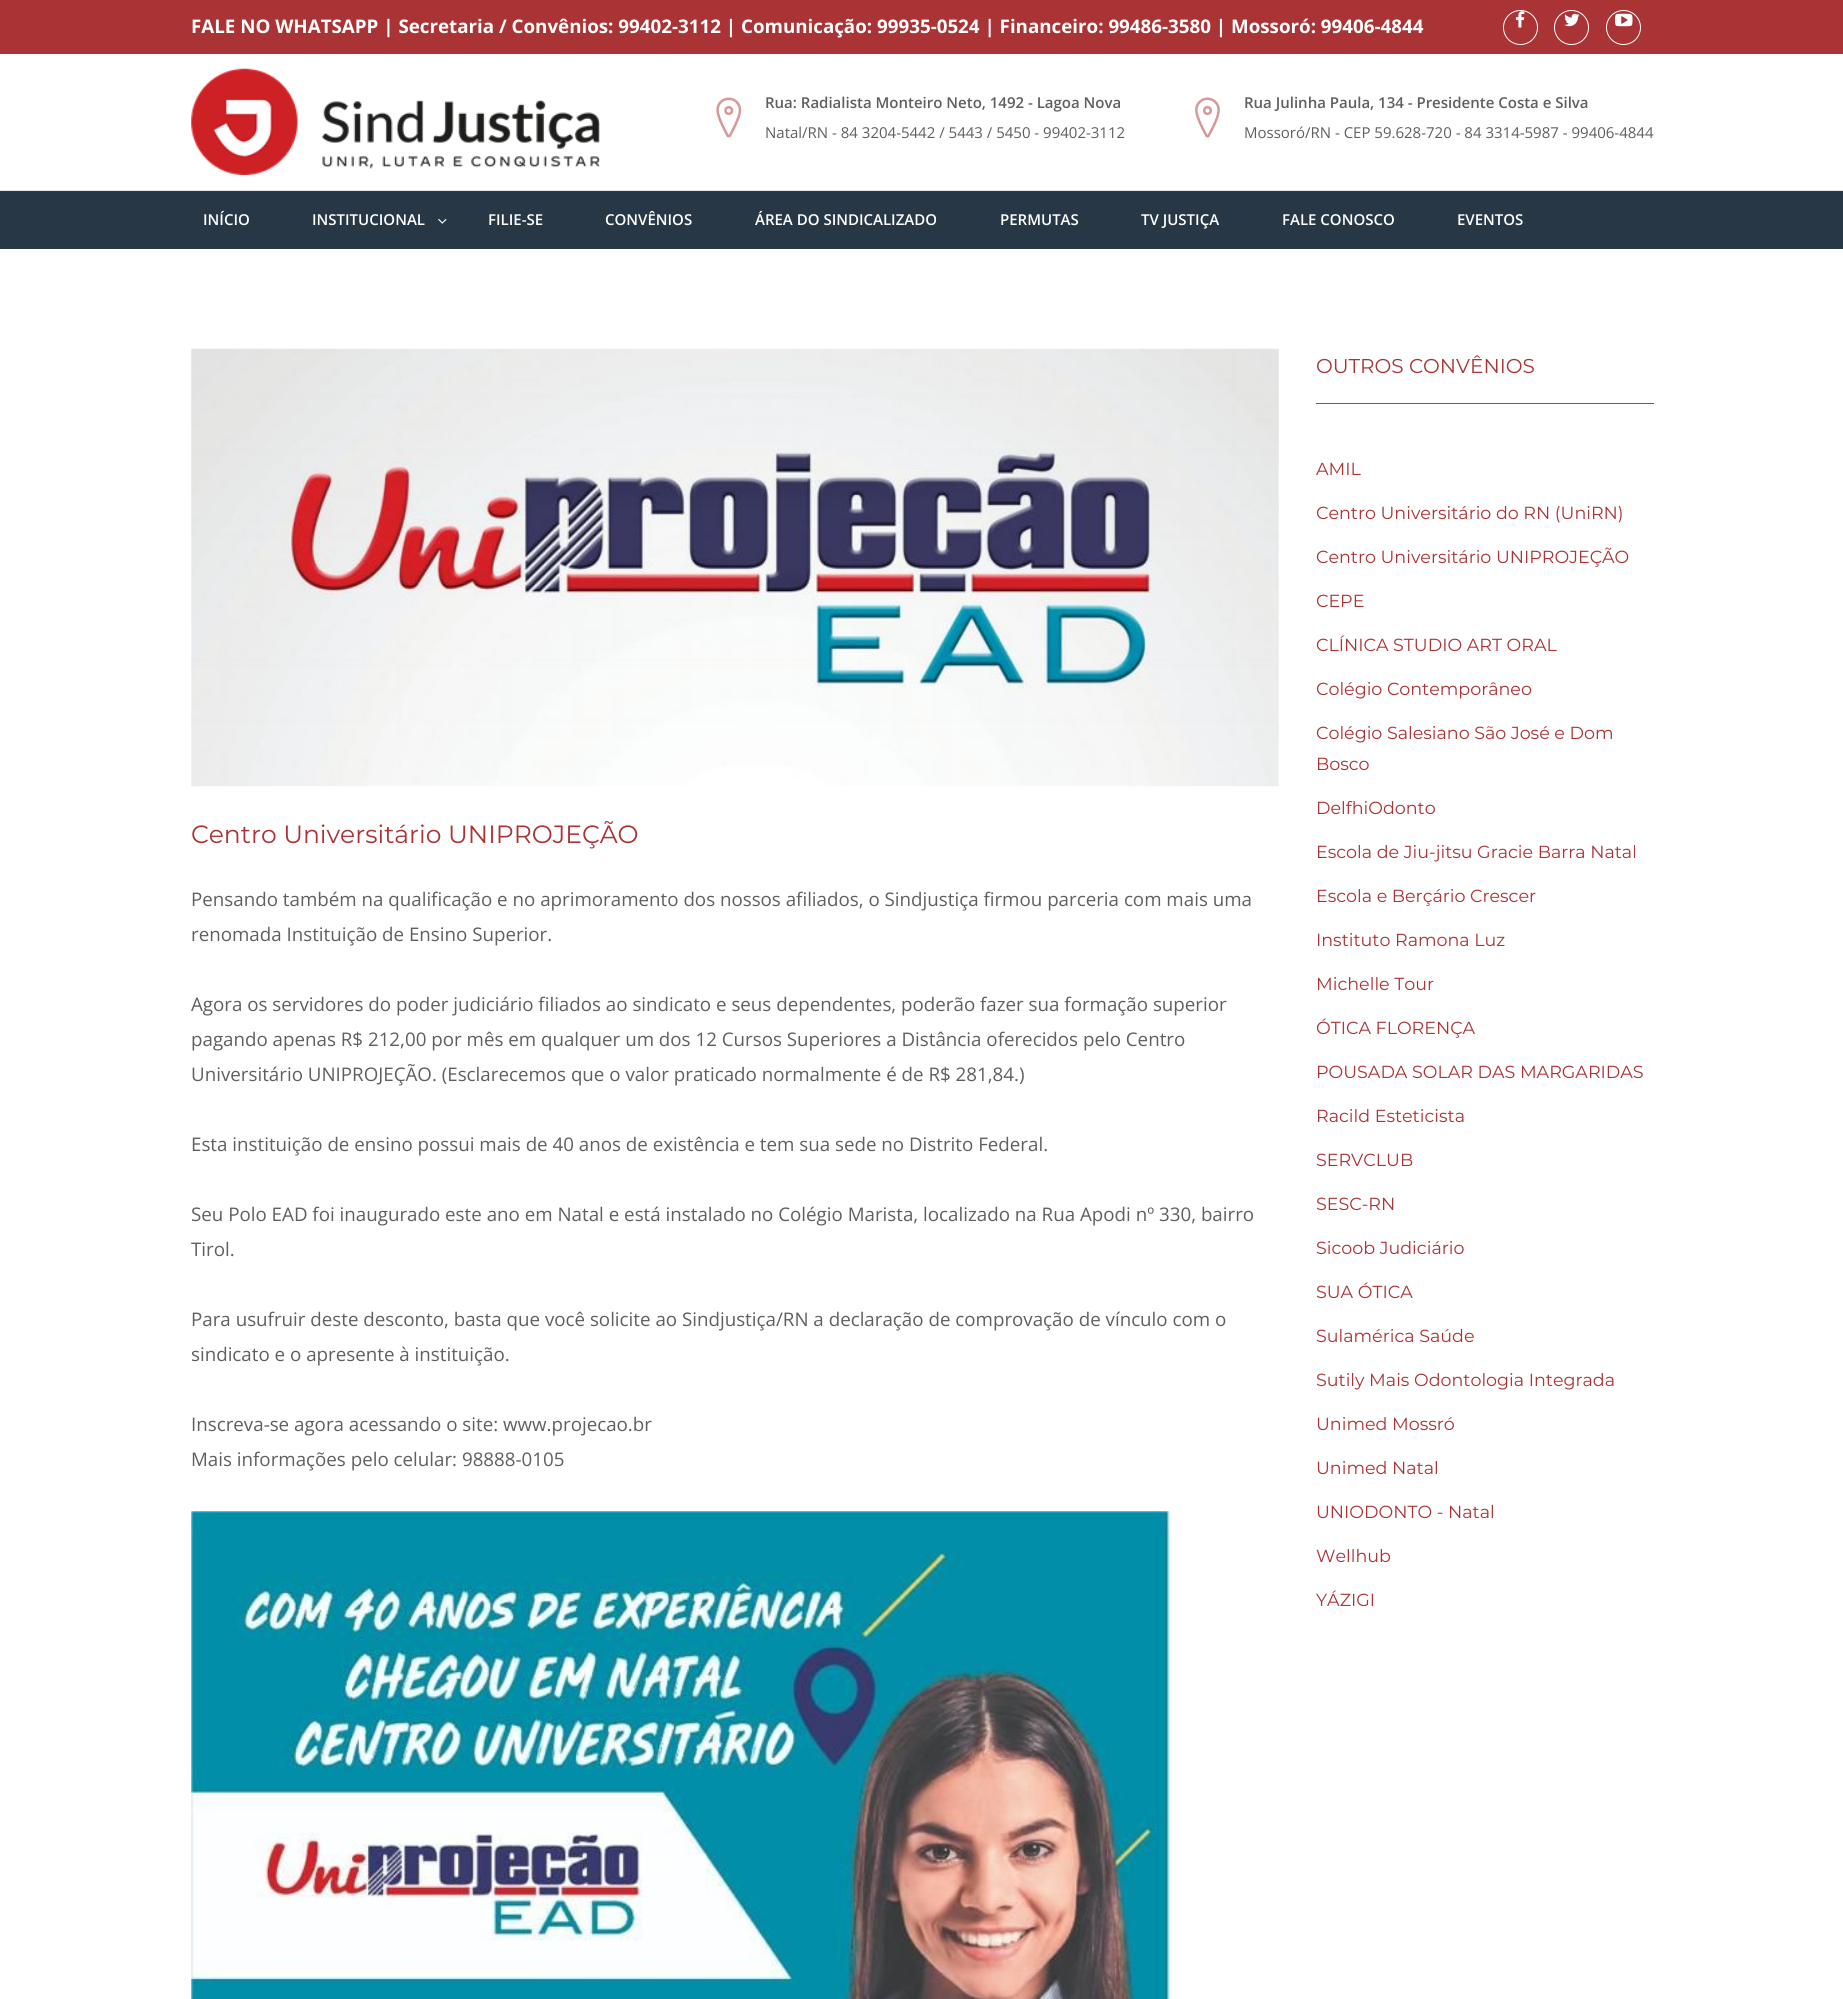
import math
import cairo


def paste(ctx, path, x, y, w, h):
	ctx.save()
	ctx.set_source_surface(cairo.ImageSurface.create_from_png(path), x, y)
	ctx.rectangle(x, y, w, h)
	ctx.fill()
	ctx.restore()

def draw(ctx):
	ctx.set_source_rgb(1, 1, 1)
	ctx.paint()
	ctx.set_source_rgb(0.667, 0.2, 0.208)
	ctx.rectangle(0, 0, 1843, 54)
	ctx.fill()
	ctx.select_font_face('Open Sans', cairo.FONT_SLANT_NORMAL, cairo.FONT_WEIGHT_BOLD)
	ctx.set_font_size(18.75)
	ctx.set_source_rgb(1, 1, 1)
	ctx.move_to(191, 33)
	ctx.show_text('FALE NO WHATSAPP | Secretaria / Convênios: 99402-3112 | Comunicação: 99935-0524 | Financeiro: 99486-3580 | Mossoró: 99406-4844')
	ctx.new_path()
	ctx.arc(1520.5, 27.5, 17, 0, 2 * math.pi)
	ctx.set_line_width(1)
	ctx.stroke()
	paste(ctx, 'media/1.png', 1515, 11, 10, 17)
	ctx.arc(1571.5, 27.5, 17, 0, 2 * math.pi)
	ctx.stroke()
	paste(ctx, 'media/2.png', 1564, 13, 16, 14)
	ctx.arc(1623.5, 27.5, 17, 0, 2 * math.pi)
	ctx.stroke()
	paste(ctx, 'media/3.png', 1615, 13, 18, 14)
	ctx.set_source_rgb(0.89, 0.89, 0.89)
	ctx.rectangle(0, 190, 1843, 1)
	ctx.fill()
	paste(ctx, 'media/4.png', 191, 68, 409, 107)
	paste(ctx, 'media/5.png', 716, 97, 26, 41)
	ctx.select_font_face('Open Sans SemiBold')
	ctx.set_font_size(15)
	ctx.set_source_rgb(0.373, 0.373, 0.373)
	ctx.move_to(765, 108)
	ctx.show_text('Rua: Radialista Monteiro Neto, 1492 - Lagoa Nova')
	ctx.select_font_face('Open Sans')
	ctx.move_to(765, 138)
	ctx.show_text('Natal/RN - 84 3204-5442 / 5443 / 5450 - 99402-3112')
	paste(ctx, 'media/6.png', 1195, 97, 25, 41)
	ctx.select_font_face('Open Sans SemiBold')
	ctx.move_to(1244, 108)
	ctx.show_text('Rua Julinha Paula, 134 - Presidente Costa e Silva')
	ctx.select_font_face('Open Sans')
	ctx.move_to(1244, 138)
	ctx.show_text('Mossoró/RN - CEP 59.628-720 - 84 3314-5987 - 99406-4844')
	ctx.set_source_rgb(0.157, 0.216, 0.271)
	ctx.rectangle(0, 191, 1843, 58)
	ctx.fill()
	ctx.select_font_face('Open Sans SemiBold')
	ctx.set_source_rgb(1, 1, 1)
	ctx.move_to(203, 225)
	ctx.show_text('INÍCIO')
	ctx.move_to(312, 225)
	ctx.show_text('INSTITUCIONAL')
	paste(ctx, 'media/7.png', 438, 218, 9, 6)
	for x, y, s in [
		(488, 225, 'FILIE-SE'),
		(605, 225, 'CONVÊNIOS'),
		(755, 225, 'ÁREA DO SINDICALIZADO'),
		(1000, 225, 'PERMUTAS'),
		(1141, 225, 'TV JUSTIÇA'),
		(1282, 225, 'FALE CONOSCO'),
		(1457, 225, 'EVENTOS'),
	]:
		ctx.move_to(x, y)
		ctx.show_text(s)
	paste(ctx, 'media/8.png', 191, 348, 1088, 439)
	ctx.select_font_face('Montserrat')
	ctx.set_font_size(25)
	ctx.set_source_rgb(0.667, 0.2, 0.208)
	ctx.move_to(191, 843)
	ctx.show_text('Centro Universitário UNIPROJEÇÃO')
	ctx.select_font_face('Open Sans')
	ctx.set_font_size(18.75)
	ctx.set_source_rgb(0.373, 0.373, 0.373)
	for x, y, s in [
		(191, 906, 'Pensando também na qualificação e no aprimoramento dos nossos afiliados, o Sindjustiça firmou parceria com mais uma'),
		(191, 941, 'renomada Instituição de Ensino Superior.'),
		(191, 1011, 'Agora os servidores do poder judiciário filiados ao sindicato e seus dependentes, poderão fazer sua formação superior'),
		(191, 1046, 'pagando apenas R$ 212,00 por mês em qualquer um dos 12 Cursos Superiores a Distância oferecidos pelo Centro'),
		(191, 1081, 'Universitário UNIPROJEÇÃO. (Esclarecemos que o valor praticado normalmente é de R$ 281,84.)'),
		(191, 1151, 'Esta instituição de ensino possui mais de 40 anos de existência e tem sua sede no Distrito Federal.'),
		(191, 1221, 'Seu Polo EAD foi inaugurado este ano em Natal e está instalado no Colégio Marista, localizado na Rua Apodi nº 330, bairro'),
		(191, 1256, 'Tirol.'),
		(191, 1326, 'Para usufruir deste desconto, basta que você solicite ao Sindjustiça/RN a declaração de comprovação de vínculo com o'),
		(191, 1361, 'sindicato e o apresente à instituição.'),
		(191, 1431, 'Inscreva-se agora acessando o site: www.projecao.br'),
		(191, 1466, 'Mais informações pelo celular: 98888-0105'),
	]:
		ctx.move_to(x, y)
		ctx.show_text(s)
	paste(ctx, 'media/9.png', 191, 1511, 979, 488)
	ctx.select_font_face('Montserrat')
	ctx.set_font_size(20)
	ctx.set_source_rgb(0.667, 0.2, 0.208)
	ctx.move_to(1316, 373)
	ctx.show_text('OUTROS CONVÊNIOS')
	ctx.set_source_rgb(0.796, 0.204, 0.231)
	ctx.rectangle(1316, 403, 338, 1)
	ctx.fill()
	ctx.set_font_size(17.5)
	ctx.set_source_rgb(0.667, 0.2, 0.208)
	for x, y, s in [
		(1316, 475, 'AMIL'),
		(1316, 519, 'Centro Universitário do RN (UniRN)'),
		(1316, 563, 'Centro Universitário UNIPROJEÇÃO'),
		(1316, 607, 'CEPE'),
		(1316, 651, 'CLÍNICA STUDIO ART ORAL'),
		(1316, 695, 'Colégio Contemporâneo'),
		(1316, 739, 'Colégio Salesiano São José e Dom'),
		(1316, 770, 'Bosco'),
		(1316, 814, 'DelfhiOdonto'),
		(1316, 858, 'Escola de Jiu-jitsu Gracie Barra Natal'),
		(1316, 902, 'Escola e Berçário Crescer'),
		(1316, 946, 'Instituto Ramona Luz'),
		(1316, 990, 'Michelle Tour'),
		(1316, 1034, 'ÓTICA FLORENÇA'),
		(1316, 1078, 'POUSADA SOLAR DAS MARGARIDAS'),
		(1316, 1122, 'Racild Esteticista'),
		(1316, 1166, 'SERVCLUB'),
		(1316, 1210, 'SESC-RN'),
		(1316, 1254, 'Sicoob Judiciário'),
		(1316, 1298, 'SUA ÓTICA'),
		(1316, 1342, 'Sulamérica Saúde'),
		(1316, 1386, 'Sutily Mais Odontologia Integrada'),
		(1316, 1430, 'Unimed Mossró'),
		(1316, 1474, 'Unimed Natal'),
		(1316, 1518, 'UNIODONTO - Natal'),
		(1316, 1562, 'Wellhub'),
		(1316, 1606, 'YÁZIGI'),
	]:
		ctx.move_to(x, y)
		ctx.show_text(s)


surface = cairo.ImageSurface(cairo.FORMAT_RGB24, 1843, 1999)
ctx = cairo.Context(surface)
options = cairo.FontOptions()
options.set_hint_metrics(cairo.HINT_METRICS_OFF)
options.set_hint_style(cairo.HINT_STYLE_NONE)
ctx.set_font_options(options)
ctx.set_miter_limit(4)
draw(ctx)
surface.write_to_png('image.png')
